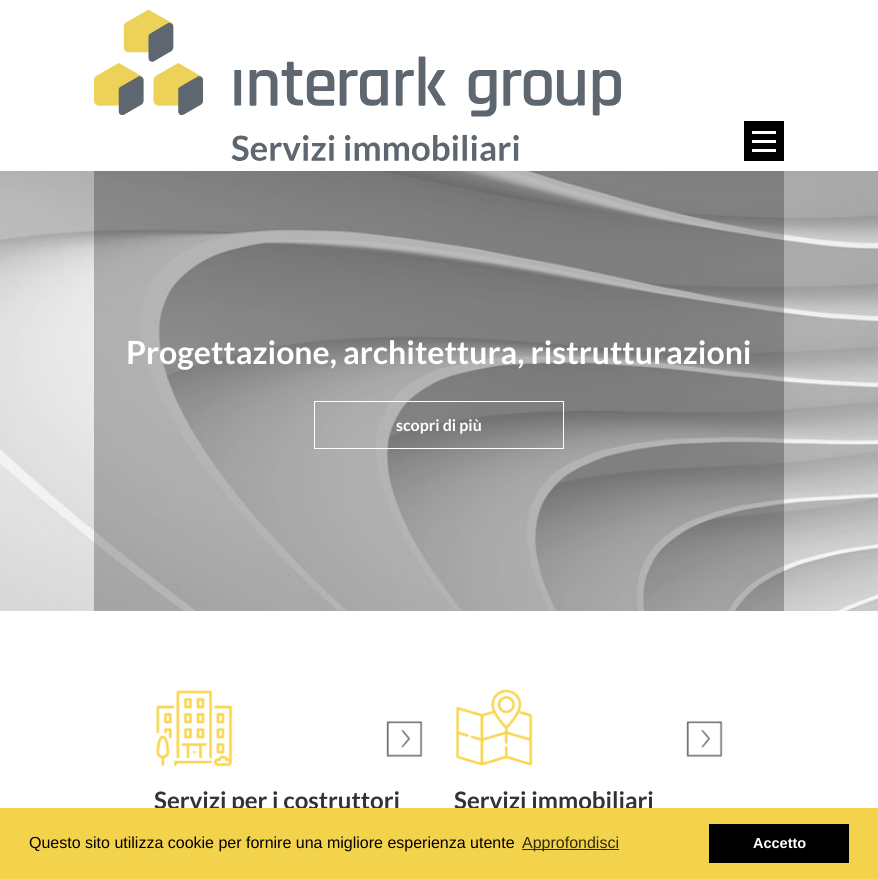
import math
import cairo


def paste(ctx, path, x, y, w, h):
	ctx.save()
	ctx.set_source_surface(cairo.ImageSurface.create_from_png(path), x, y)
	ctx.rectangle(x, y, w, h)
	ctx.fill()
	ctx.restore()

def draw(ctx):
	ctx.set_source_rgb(1, 1, 1)
	ctx.paint()
	paste(ctx, 'media/1.png', 94, 10, 527, 151)
	ctx.set_source_rgb(0, 0, 0)
	ctx.rectangle(744, 121, 40, 40)
	ctx.fill()
	ctx.set_source_rgb(1, 1, 1)
	ctx.rectangle(752, 131, 24, 3)
	ctx.rectangle(752, 140, 24, 3)
	ctx.rectangle(752, 149, 24, 3)
	ctx.fill()
	paste(ctx, 'media/2.png', 0, 171, 878, 440)
	ctx.set_source_rgba(0, 0, 0, 0.25)
	ctx.rectangle(94, 171, 690, 440)
	ctx.fill()
	ctx.select_font_face('Lato', cairo.FONT_SLANT_NORMAL, cairo.FONT_WEIGHT_BOLD)
	ctx.set_font_size(32)
	ctx.set_source_rgb(1, 1, 1)
	ctx.move_to(126, 364)
	ctx.show_text('Progettazione, architettura, ristrutturazioni')
	ctx.rectangle(314.5, 401.5, 249, 47)
	ctx.set_line_width(1)
	ctx.stroke()
	ctx.set_font_size(16)
	ctx.move_to(396, 431)
	ctx.show_text('scopri di più')
	paste(ctx, 'media/3.png', 155, 689, 268, 78)
	ctx.set_font_size(24)
	ctx.set_source_rgb(0.2, 0.2, 0.2)
	ctx.move_to(154, 809)
	ctx.show_text('Servizi per i costruttori')
	paste(ctx, 'media/4.png', 455, 689, 268, 77)
	ctx.move_to(454, 809)
	ctx.show_text('Servizi immobiliari')
	ctx.set_source_rgb(0.957, 0.827, 0.298)
	ctx.rectangle(0, 808, 878, 71)
	ctx.fill()
	ctx.select_font_face('Liberation Sans')
	ctx.set_font_size(16)
	ctx.set_source_rgb(0, 0, 0)
	ctx.move_to(29, 848)
	ctx.show_text('Questo sito utilizza cookie per fornire una migliore esperienza utente')
	ctx.set_source_rgb(0.192, 0.165, 0.059)
	ctx.rectangle(522, 849, 97, 1)
	ctx.fill()
	ctx.move_to(522, 848)
	ctx.show_text('Approfondisci')
	ctx.set_source_rgb(0, 0, 0)
	ctx.rectangle(709, 824, 140, 39)
	ctx.fill()
	ctx.select_font_face('Liberation Sans', cairo.FONT_SLANT_NORMAL, cairo.FONT_WEIGHT_BOLD)
	ctx.set_font_size(14.5)
	ctx.set_source_rgb(1, 1, 1)
	ctx.move_to(753, 848)
	ctx.show_text('Accetto')


surface = cairo.ImageSurface(cairo.FORMAT_RGB24, 878, 879)
ctx = cairo.Context(surface)
options = cairo.FontOptions()
options.set_hint_metrics(cairo.HINT_METRICS_OFF)
options.set_hint_style(cairo.HINT_STYLE_NONE)
ctx.set_font_options(options)
ctx.set_miter_limit(4)
draw(ctx)
surface.write_to_png('image.png')
